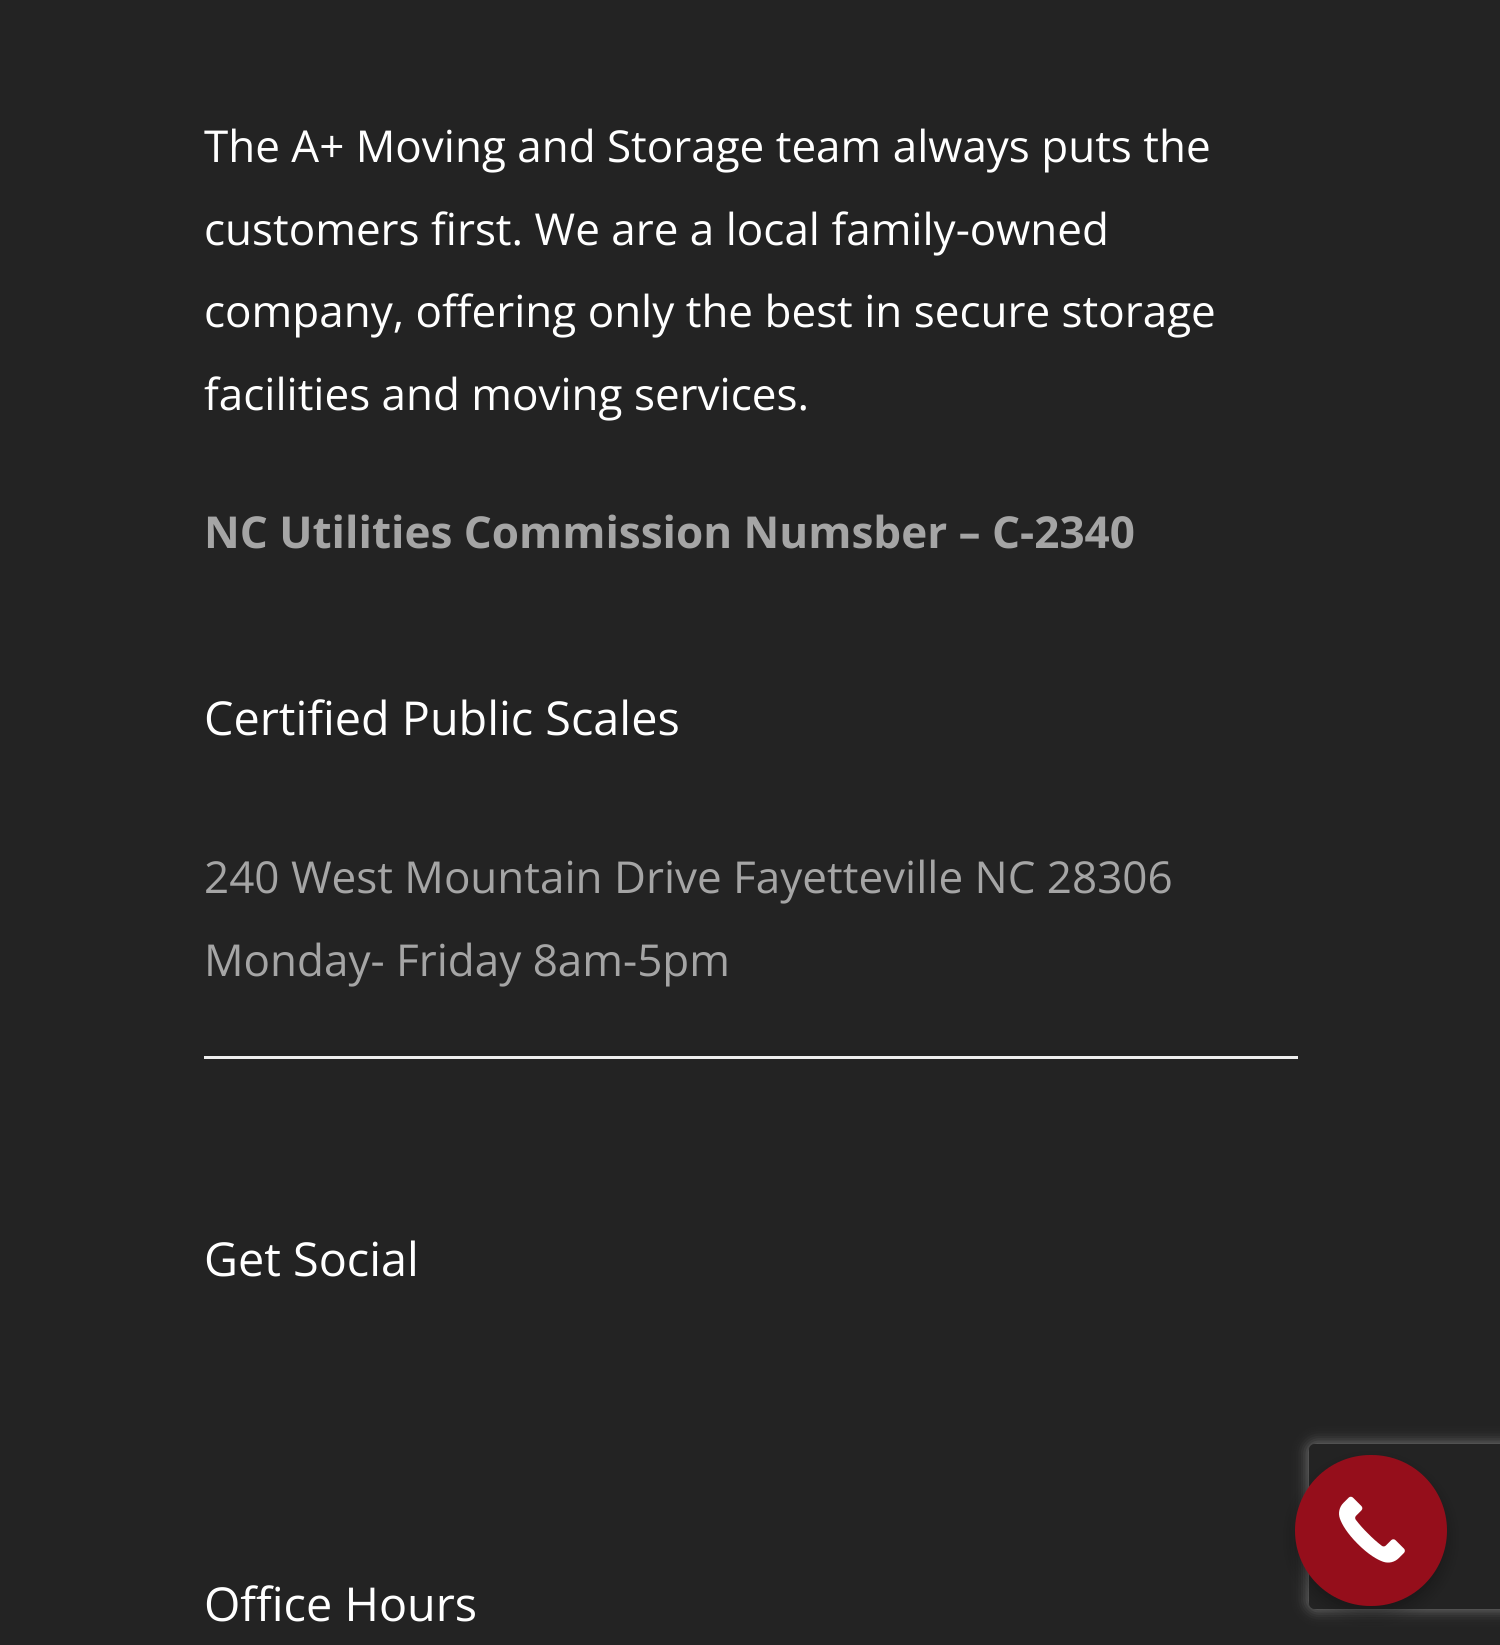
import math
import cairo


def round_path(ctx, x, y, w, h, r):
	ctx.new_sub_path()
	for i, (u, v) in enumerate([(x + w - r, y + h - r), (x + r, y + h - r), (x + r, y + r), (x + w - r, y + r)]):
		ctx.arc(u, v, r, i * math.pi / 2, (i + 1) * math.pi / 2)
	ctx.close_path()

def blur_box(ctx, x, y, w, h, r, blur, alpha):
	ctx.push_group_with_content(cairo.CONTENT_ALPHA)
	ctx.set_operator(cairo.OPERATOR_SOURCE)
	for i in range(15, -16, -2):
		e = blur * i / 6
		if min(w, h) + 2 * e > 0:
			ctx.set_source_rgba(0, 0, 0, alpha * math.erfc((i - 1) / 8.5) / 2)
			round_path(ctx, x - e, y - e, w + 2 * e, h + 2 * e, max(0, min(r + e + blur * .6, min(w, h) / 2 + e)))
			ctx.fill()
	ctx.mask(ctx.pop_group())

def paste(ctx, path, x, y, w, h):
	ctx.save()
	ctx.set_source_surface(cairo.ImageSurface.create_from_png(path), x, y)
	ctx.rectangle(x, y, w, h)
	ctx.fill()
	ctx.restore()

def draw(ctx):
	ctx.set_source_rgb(0.137, 0.137, 0.137)
	ctx.paint()
	ctx.select_font_face('Open Sans')
	ctx.set_font_size(44)
	ctx.set_source_rgb(1, 1, 1)
	for x, y, s in [
		(204, 162, 'The A+ Moving and Storage team always puts the'),
		(204, 245, 'customers first. We are a local family-owned'),
		(204, 327, 'company, offering only the best in secure storage'),
		(204, 410, 'facilities and moving services.'),
	]:
		ctx.move_to(x, y)
		ctx.show_text(s)
	ctx.select_font_face('Open Sans', cairo.FONT_SLANT_NORMAL, cairo.FONT_WEIGHT_BOLD)
	ctx.set_source_rgb(0.647, 0.647, 0.647)
	ctx.move_to(204, 548)
	ctx.show_text('NC Utilities Commission Numsber – C-2340')
	ctx.select_font_face('Open Sans')
	ctx.set_font_size(46.75)
	ctx.set_source_rgb(1, 1, 1)
	ctx.move_to(204, 735)
	ctx.show_text('Certified Public Scales')
	ctx.set_font_size(44)
	ctx.set_source_rgb(0.647, 0.647, 0.647)
	ctx.move_to(204, 893)
	ctx.show_text('240 West Mountain Drive Fayetteville NC 28306')
	ctx.move_to(204, 976)
	ctx.show_text('Monday- Friday 8am-5pm')
	ctx.set_source_rgb(0.933, 0.933, 0.933)
	ctx.rectangle(204, 1056, 1094, 3)
	ctx.fill()
	ctx.set_font_size(46.75)
	ctx.set_source_rgb(1, 1, 1)
	ctx.move_to(204, 1276)
	ctx.show_text('Get Social')
	ctx.move_to(204, 1621)
	ctx.show_text('Office Hours')
	ctx.save()
	ctx.set_fill_rule(cairo.FILL_RULE_EVEN_ODD)
	ctx.new_path()
	ctx.move_to(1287, 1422)
	ctx.line_to(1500, 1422)
	ctx.line_to(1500, 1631)
	ctx.line_to(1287, 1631)
	ctx.close_path()
	ctx.move_to(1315, 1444)
	ctx.line_to(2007, 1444)
	ctx.curve_to(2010.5, 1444, 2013, 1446.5, 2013, 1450)
	ctx.line_to(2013, 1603)
	ctx.curve_to(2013, 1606.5, 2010.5, 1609, 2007, 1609)
	ctx.line_to(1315, 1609)
	ctx.curve_to(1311.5, 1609, 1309, 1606.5, 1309, 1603)
	ctx.line_to(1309, 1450)
	ctx.curve_to(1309, 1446.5, 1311.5, 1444, 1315, 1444)
	ctx.close_path()
	ctx.clip()
	ctx.set_source_rgb(0.502, 0.502, 0.502)
	blur_box(ctx, 1309, 1444, 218, 165, 6, 7, 1)
	ctx.restore()
	ctx.set_source_rgb(0, 0, 0)
	blur_box(ctx, 1295, 1463, 152, 151, 75.5, 8, 0.3)
	ctx.set_source_rgb(0.584, 0.055, 0.106)
	round_path(ctx, 1295, 1455, 152, 151, 75.5)
	ctx.fill()
	paste(ctx, 'media/1.png', 1339, 1496, 66, 67)


surface = cairo.ImageSurface(cairo.FORMAT_RGB24, 1500, 1645)
ctx = cairo.Context(surface)
options = cairo.FontOptions()
options.set_hint_metrics(cairo.HINT_METRICS_OFF)
options.set_hint_style(cairo.HINT_STYLE_NONE)
ctx.set_font_options(options)
ctx.set_miter_limit(4)
draw(ctx)
surface.write_to_png('image.png')
